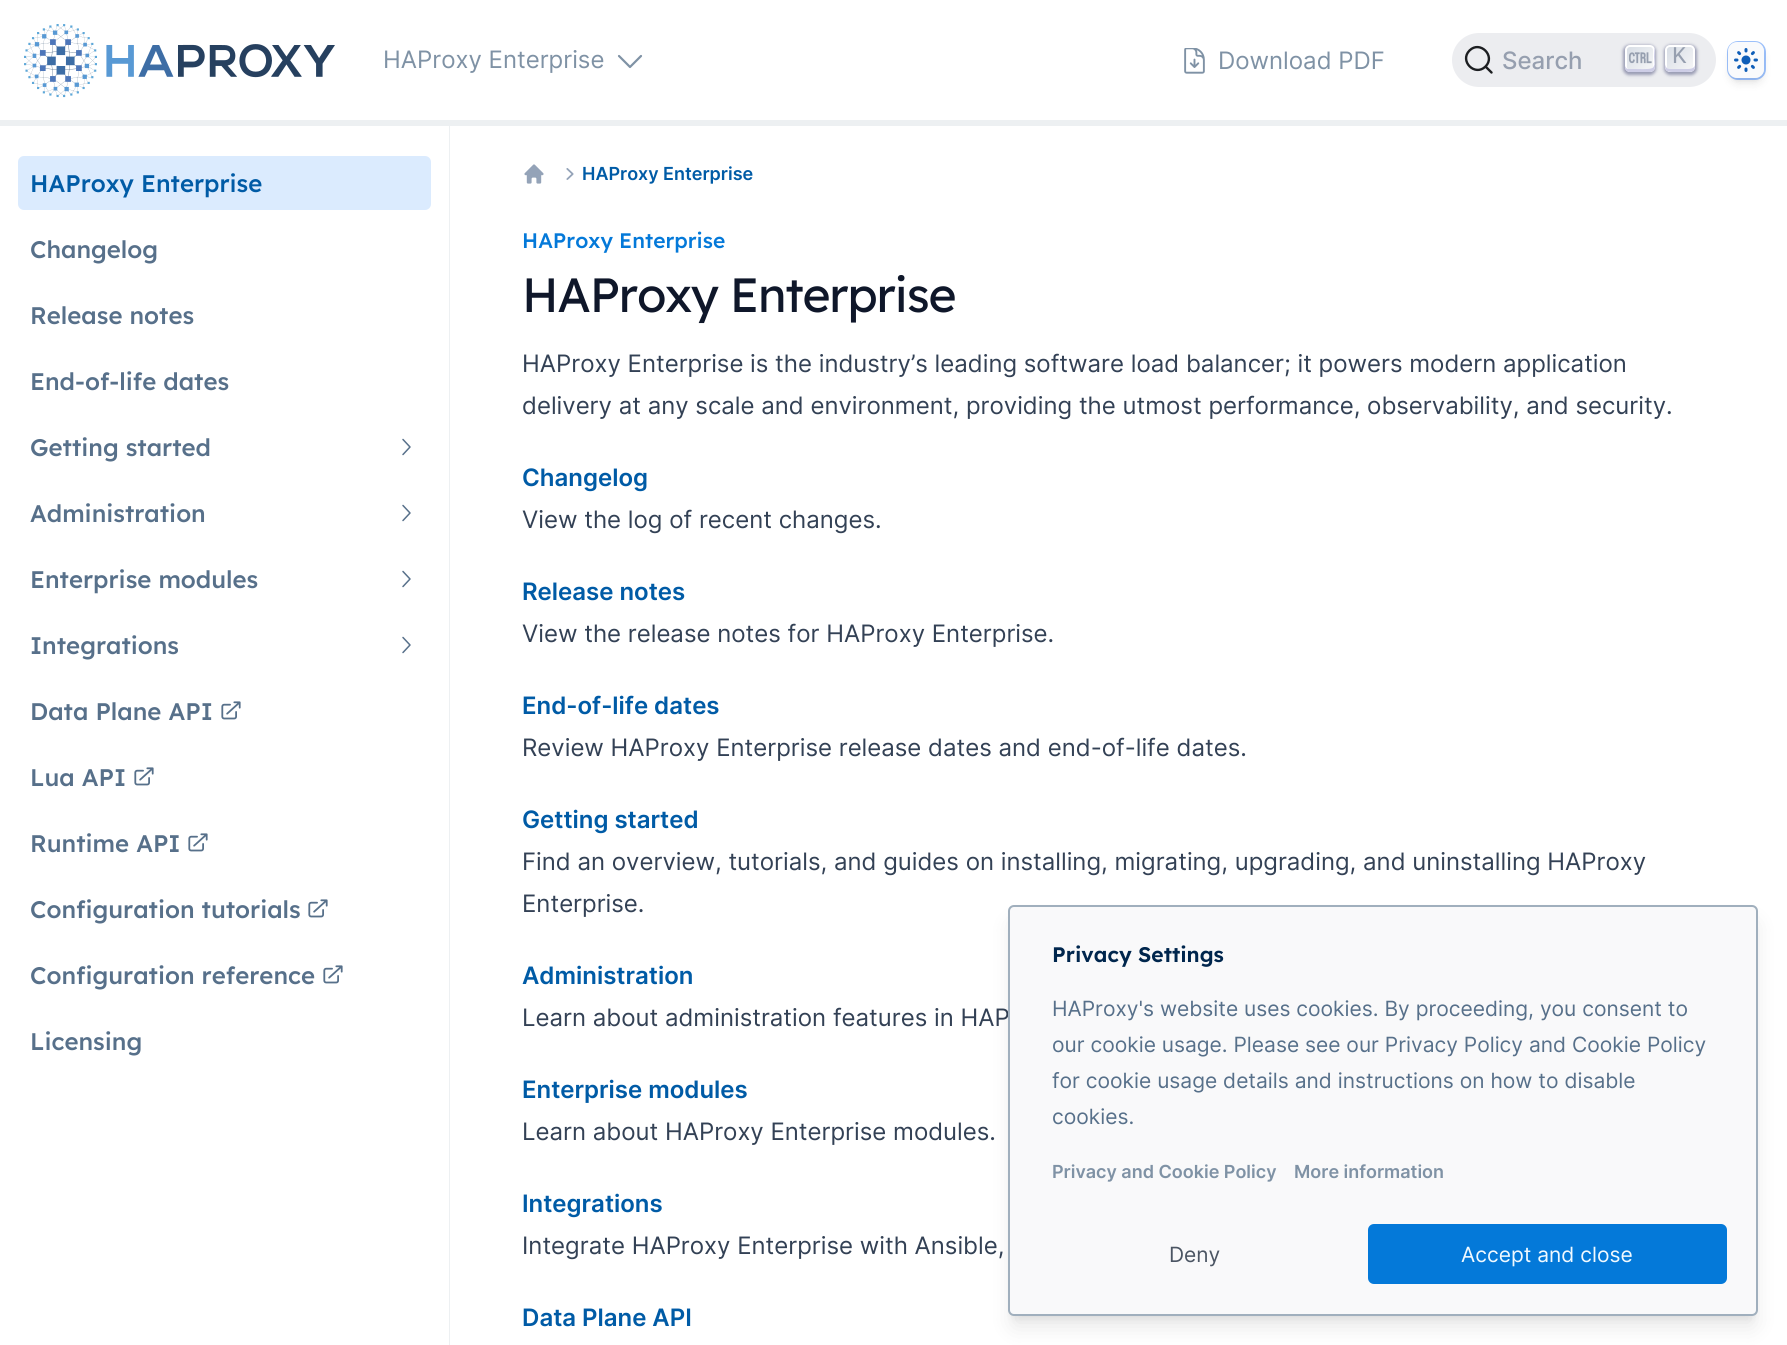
import math
import cairo


def write_spaced(ctx, x, y, s, letter, word):
	ctx.move_to(x, y)
	for ch in s:
		ctx.show_text(ch)
		ctx.rel_move_to(letter + word * (ch == ' '), 0)

def round_path(ctx, x, y, w, h, r):
	ctx.new_sub_path()
	for i, (u, v) in enumerate([(x + w - r, y + h - r), (x + r, y + h - r), (x + r, y + r), (x + w - r, y + r)]):
		ctx.arc(u, v, r, i * math.pi / 2, (i + 1) * math.pi / 2)
	ctx.close_path()

def blur_box(ctx, x, y, w, h, r, blur, alpha):
	ctx.push_group_with_content(cairo.CONTENT_ALPHA)
	ctx.set_operator(cairo.OPERATOR_SOURCE)
	for i in range(15, -16, -2):
		e = blur * i / 6
		if min(w, h) + 2 * e > 0:
			ctx.set_source_rgba(0, 0, 0, alpha * math.erfc((i - 1) / 8.5) / 2)
			round_path(ctx, x - e, y - e, w + 2 * e, h + 2 * e, max(0, min(r + e + blur * .6, min(w, h) / 2 + e)))
			ctx.fill()
	ctx.mask(ctx.pop_group())

def paste(ctx, path, x, y, w, h):
	ctx.save()
	ctx.set_source_surface(cairo.ImageSurface.create_from_png(path), x, y)
	ctx.rectangle(x, y, w, h)
	ctx.fill()
	ctx.restore()

def draw(ctx):
	ctx.set_source_rgb(1, 1, 1)
	ctx.paint()
	ctx.set_source_rgb(0.929, 0.941, 0.949)
	ctx.rectangle(0, 120, 1787, 6)
	ctx.fill()
	paste(ctx, 'media/1.png', 24, 24, 311, 74)
	ctx.select_font_face('Inter')
	ctx.set_font_size(24)
	ctx.set_source_rgb(0.498, 0.573, 0.647)
	ctx.move_to(383, 68)
	ctx.show_text('HAProxy Enterprise')
	ctx.new_path()
	ctx.move_to(641, 56)
	ctx.line_to(630, 67)
	ctx.line_to(619, 56)
	ctx.set_line_width(2.2)
	ctx.set_line_cap(cairo.LINE_CAP_ROUND)
	ctx.set_line_join(cairo.LINE_JOIN_ROUND)
	ctx.stroke()
	paste(ctx, 'media/2.png', 1184, 48, 21, 26)
	ctx.move_to(1218, 69)
	ctx.show_text('Download PDF')
	ctx.set_source_rgb(0.922, 0.929, 0.941)
	round_path(ctx, 1452, 33, 264, 54, 27)
	ctx.fill()
	ctx.new_path()
	ctx.move_to(1485.5, 66.5)
	ctx.line_to(1491.5, 72.5)
	ctx.line_to(1485.5, 66.5)
	ctx.curve_to(1475, 77, 1459, 61, 1469.5, 50.5)
	ctx.curve_to(1480, 40, 1496, 56, 1485.5, 66.5)
	ctx.close_path()
	ctx.set_source_rgb(0.11, 0.118, 0.129)
	ctx.set_line_width(2.4)
	ctx.stroke()
	ctx.select_font_face('Inter Medium')
	ctx.set_source_rgb(0.588, 0.624, 0.686)
	ctx.move_to(1502, 69)
	ctx.show_text('Search')
	ctx.set_source_rgb(0.118, 0.137, 0.353)
	blur_box(ctx, 1623, 45, 33, 30, 6, 1.5, 0.4)
	gradient = cairo.LinearGradient(1625, 44, 1654, 73)
	gradient.add_color_stop_rgba(0, 0.835, 0.859, 0.894, 1)
	gradient.add_color_stop_rgba(1, 0.973, 0.973, 0.973, 1)
	ctx.set_source(gradient)
	round_path(ctx, 1626, 46, 28, 25, 4)
	ctx.fill_preserve()
	ctx.set_source_rgb(1, 1, 1)
	ctx.set_line_width(2)
	ctx.set_line_cap(cairo.LINE_CAP_BUTT)
	ctx.set_line_join(cairo.LINE_JOIN_MITER)
	ctx.stroke()
	ctx.set_source_rgb(0.804, 0.804, 0.902)
	ctx.new_path()
	ctx.move_to(1625, 66)
	ctx.line_to(1625, 67)
	ctx.curve_to(1625, 70, 1627, 72, 1630, 72)
	ctx.line_to(1650, 72)
	ctx.curve_to(1653, 72, 1655, 70, 1655, 67)
	ctx.line_to(1655, 50)
	ctx.curve_to(1655, 49, 1655, 48.5, 1654.5, 47.5)
	ctx.line_to(1654, 56.5)
	ctx.line_to(1654.5, 64.5)
	ctx.line_to(1653.5, 67)
	ctx.curve_to(1653, 68, 1652, 68, 1651, 68.5)
	ctx.curve_to(1646.5, 69.5, 1639.5, 69, 1634.5, 69)
	ctx.line_to(1627.5, 69)
	ctx.curve_to(1626.5, 68.5, 1625.5, 67.5, 1625, 66)
	ctx.close_path()
	ctx.fill()
	paste(ctx, 'media/3.png', 1629, 52, 23, 12)
	ctx.set_source_rgb(0.118, 0.137, 0.353)
	blur_box(ctx, 1664, 45, 33, 30, 6, 1.5, 0.4)
	gradient = cairo.LinearGradient(1666, 44, 1694, 73)
	gradient.add_color_stop_rgba(0, 0.835, 0.859, 0.894, 1)
	gradient.add_color_stop_rgba(1, 0.973, 0.973, 0.973, 1)
	ctx.set_source(gradient)
	round_path(ctx, 1666, 46, 28, 25, 4)
	ctx.fill_preserve()
	ctx.set_source_rgb(1, 1, 1)
	ctx.stroke()
	ctx.set_source_rgb(0.804, 0.804, 0.902)
	ctx.new_path()
	ctx.move_to(1695, 65)
	ctx.curve_to(1694.5, 67.5, 1692.5, 69, 1687, 69)
	ctx.line_to(1670, 69)
	ctx.curve_to(1667, 69, 1665.5, 67, 1665, 64.5)
	ctx.curve_to(1665, 71, 1666.5, 72, 1673.5, 72)
	ctx.line_to(1686.5, 72)
	ctx.curve_to(1693, 72, 1695, 71.5, 1695, 65)
	ctx.close_path()
	ctx.fill()
	ctx.select_font_face('Liberation Mono')
	ctx.set_source_rgb(0.588, 0.624, 0.686)
	ctx.move_to(1672, 63)
	ctx.show_text('K')
	ctx.set_source_rgb(0, 0, 0)
	blur_box(ctx, 1731, 48, 30, 30, 6, 3, 0.1)
	blur_box(ctx, 1730, 50, 33, 33, 8, 4.5, 0.1)
	round_path(ctx, 1728, 42, 37, 37, 10)
	ctx.set_source_rgba(0.231, 0.51, 0.965, 0.5)
	ctx.stroke()
	ctx.set_source_rgb(0.973, 0.98, 0.988)
	round_path(ctx, 1728, 42, 36, 36, 9)
	ctx.fill()
	paste(ctx, 'media/4.png', 1734, 48, 24, 24)
	ctx.set_source_rgb(0.929, 0.941, 0.949)
	ctx.rectangle(449, 126, 1, 1219)
	ctx.fill()
	ctx.set_source_rgb(0.859, 0.918, 0.996)
	round_path(ctx, 18, 156, 413, 54, 6)
	ctx.fill()
	ctx.select_font_face('Lexend Medium')
	ctx.set_source_rgb(0, 0.357, 0.651)
	ctx.move_to(30, 192)
	ctx.show_text('HAProxy Enterprise')
	ctx.set_source_rgb(0.341, 0.439, 0.541)
	for x, y, s in [
		(30, 258, 'Changelog'),
		(30, 324, 'Release notes'),
		(30, 390, 'End-of-life dates'),
		(30, 456, 'Getting started'),
	]:
		ctx.move_to(x, y)
		ctx.show_text(s)
	ctx.new_path()
	ctx.move_to(403, 439.5)
	ctx.line_to(410, 447)
	ctx.line_to(403, 454.5)
	ctx.set_line_width(1.5)
	ctx.set_line_cap(cairo.LINE_CAP_ROUND)
	ctx.set_line_join(cairo.LINE_JOIN_ROUND)
	ctx.stroke()
	ctx.move_to(30, 522)
	ctx.show_text('Administration')
	ctx.new_path()
	ctx.move_to(403, 505.5)
	ctx.line_to(410, 513)
	ctx.line_to(403, 520.5)
	ctx.stroke()
	ctx.move_to(30, 588)
	ctx.show_text('Enterprise modules')
	ctx.new_path()
	ctx.move_to(403, 571.5)
	ctx.line_to(410, 579)
	ctx.line_to(403, 586.5)
	ctx.stroke()
	ctx.move_to(30, 654)
	ctx.show_text('Integrations')
	ctx.new_path()
	ctx.move_to(403, 637.5)
	ctx.line_to(410, 645)
	ctx.line_to(403, 652.5)
	ctx.stroke()
	ctx.move_to(30, 720)
	ctx.show_text('Data Plane API')
	paste(ctx, 'media/5.png', 221, 701, 20, 19)
	ctx.move_to(30, 786)
	ctx.show_text('Lua API')
	paste(ctx, 'media/5.png', 134, 767, 20, 19)
	ctx.move_to(30, 852)
	ctx.show_text('Runtime API')
	paste(ctx, 'media/5.png', 188, 833, 20, 19)
	ctx.move_to(30, 918)
	ctx.show_text('Configuration tutorials')
	paste(ctx, 'media/5.png', 308, 899, 20, 19)
	ctx.move_to(30, 984)
	ctx.show_text('Configuration reference')
	paste(ctx, 'media/5.png', 323, 965, 20, 19)
	ctx.move_to(30, 1050)
	ctx.show_text('Licensing')
	paste(ctx, 'media/6.png', 524, 164, 20, 20)
	paste(ctx, 'media/7.png', 566, 168, 8, 12)
	ctx.select_font_face('Inter SemiBold')
	ctx.set_font_size(18)
	ctx.set_source_rgb(0, 0.357, 0.651)
	ctx.move_to(582, 180)
	ctx.show_text('HAProxy Enterprise')
	ctx.select_font_face('Lexend Medium')
	ctx.set_font_size(21)
	ctx.set_source_rgb(0.016, 0.475, 0.851)
	ctx.move_to(522, 248)
	ctx.show_text('HAProxy Enterprise')
	ctx.select_font_face('Lexend')
	ctx.set_font_size(48)
	ctx.set_source_rgb(0.059, 0.09, 0.165)
	write_spaced(ctx, 522, 312, 'HAProxy Enterprise', -1.25, 0)
	ctx.select_font_face('Inter')
	ctx.set_font_size(24)
	ctx.set_source_rgb(0.2, 0.255, 0.333)
	ctx.move_to(522, 372)
	ctx.show_text('HAProxy Enterprise is the industry’s leading software load balancer; it powers modern application')
	ctx.move_to(522, 414)
	ctx.show_text('delivery at any scale and environment, providing the utmost performance, observability, and security.')
	ctx.select_font_face('Inter SemiBold')
	ctx.set_source_rgb(0, 0.357, 0.651)
	ctx.move_to(522, 486)
	ctx.show_text('Changelog')
	ctx.select_font_face('Inter')
	ctx.set_source_rgb(0.2, 0.255, 0.333)
	ctx.move_to(522, 528)
	ctx.show_text('View the log of recent changes.')
	ctx.select_font_face('Inter SemiBold')
	ctx.set_source_rgb(0, 0.357, 0.651)
	ctx.move_to(522, 600)
	ctx.show_text('Release notes')
	ctx.select_font_face('Inter')
	ctx.set_source_rgb(0.2, 0.255, 0.333)
	ctx.move_to(522, 642)
	ctx.show_text('View the release notes for HAProxy Enterprise.')
	ctx.select_font_face('Inter SemiBold')
	ctx.set_source_rgb(0, 0.357, 0.651)
	ctx.move_to(522, 714)
	ctx.show_text('End-of-life dates')
	ctx.select_font_face('Inter')
	ctx.set_source_rgb(0.2, 0.255, 0.333)
	ctx.move_to(522, 756)
	ctx.show_text('Review HAProxy Enterprise release dates and end-of-life dates.')
	ctx.select_font_face('Inter SemiBold')
	ctx.set_source_rgb(0, 0.357, 0.651)
	ctx.move_to(522, 828)
	ctx.show_text('Getting started')
	ctx.select_font_face('Inter')
	ctx.set_source_rgb(0.2, 0.255, 0.333)
	ctx.move_to(522, 870)
	ctx.show_text('Find an overview, tutorials, and guides on installing, migrating, upgrading, and uninstalling HAProxy')
	ctx.move_to(522, 912)
	ctx.show_text('Enterprise.')
	ctx.select_font_face('Inter SemiBold')
	ctx.set_source_rgb(0, 0.357, 0.651)
	ctx.move_to(522, 984)
	ctx.show_text('Administration')
	ctx.select_font_face('Inter')
	ctx.set_source_rgb(0.2, 0.255, 0.333)
	ctx.move_to(522, 1026)
	ctx.show_text('Learn about administration features in HAP')
	ctx.select_font_face('Inter SemiBold')
	ctx.set_source_rgb(0, 0.357, 0.651)
	ctx.move_to(522, 1098)
	ctx.show_text('Enterprise modules')
	ctx.select_font_face('Inter')
	ctx.set_source_rgb(0.2, 0.255, 0.333)
	ctx.move_to(522, 1140)
	ctx.show_text('Learn about HAProxy Enterprise modules.')
	ctx.select_font_face('Inter SemiBold')
	ctx.set_source_rgb(0, 0.357, 0.651)
	ctx.move_to(522, 1212)
	ctx.show_text('Integrations')
	ctx.select_font_face('Inter')
	ctx.set_source_rgb(0.2, 0.255, 0.333)
	ctx.move_to(522, 1254)
	ctx.show_text('Integrate HAProxy Enterprise with Ansible,')
	ctx.select_font_face('Inter SemiBold')
	ctx.set_source_rgb(0, 0.357, 0.651)
	ctx.move_to(522, 1326)
	ctx.show_text('Data Plane API')
	ctx.set_source_rgb(0, 0, 0)
	blur_box(ctx, 1014, 917, 738, 399, 0, 4.5, 0.1)
	blur_box(ctx, 1013, 924, 741, 402, 1.5, 11, 0.1)
	ctx.set_source_rgb(0.973, 0.976, 0.98)
	round_path(ctx, 1009, 906, 748, 409, 5)
	ctx.fill_preserve()
	ctx.set_source_rgb(0.627, 0.686, 0.741)
	ctx.set_line_width(2)
	ctx.set_line_cap(cairo.LINE_CAP_BUTT)
	ctx.set_line_join(cairo.LINE_JOIN_MITER)
	ctx.stroke()
	ctx.select_font_face('Lexend SemiBold')
	ctx.set_font_size(21)
	ctx.set_source_rgb(0, 0.149, 0.302)
	ctx.move_to(1052, 962)
	ctx.show_text('Privacy Settings')
	ctx.select_font_face('Inter')
	ctx.set_source_rgb(0.341, 0.439, 0.541)
	for x, y, s in [
		(1052, 1016, 'HAProxy\'s website uses cookies. By proceeding, you consent to'),
		(1052, 1052, 'our cookie usage. Please see our Privacy Policy and Cookie Policy'),
		(1052, 1088, 'for cookie usage details and instructions on how to disable'),
		(1052, 1124, 'cookies.'),
	]:
		ctx.move_to(x, y)
		ctx.show_text(s)
	ctx.select_font_face('Inter SemiBold')
	ctx.set_font_size(18)
	ctx.set_source_rgb(0.498, 0.573, 0.647)
	ctx.move_to(1052, 1178)
	ctx.show_text('Privacy and Cookie Policy')
	ctx.move_to(1294, 1178)
	ctx.show_text('More information')
	ctx.select_font_face('Inter')
	ctx.set_font_size(21)
	ctx.set_source_rgb(0.294, 0.333, 0.388)
	ctx.move_to(1169, 1262)
	ctx.show_text('Deny')
	ctx.set_source_rgb(0.016, 0.475, 0.851)
	round_path(ctx, 1368, 1224, 359, 60, 6)
	ctx.fill()
	ctx.set_source_rgb(0.941, 0.973, 1)
	ctx.move_to(1461, 1262)
	ctx.show_text('Accept and close')


surface = cairo.ImageSurface(cairo.FORMAT_RGB24, 1787, 1345)
ctx = cairo.Context(surface)
options = cairo.FontOptions()
options.set_hint_metrics(cairo.HINT_METRICS_OFF)
options.set_hint_style(cairo.HINT_STYLE_NONE)
ctx.set_font_options(options)
ctx.set_miter_limit(4)
draw(ctx)
surface.write_to_png('image.png')
